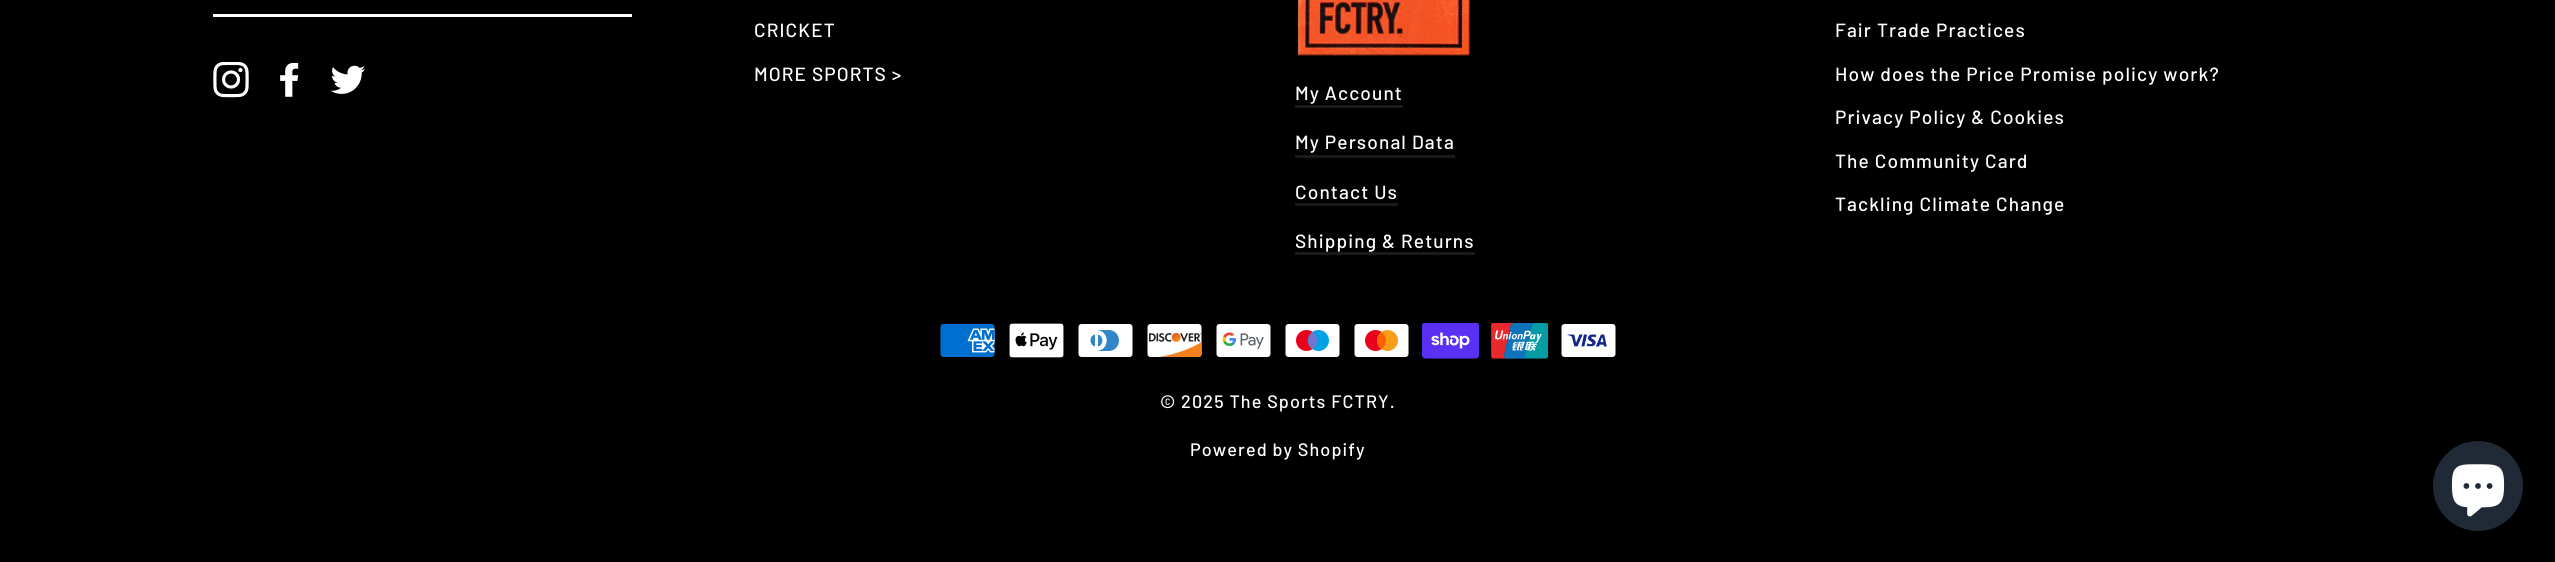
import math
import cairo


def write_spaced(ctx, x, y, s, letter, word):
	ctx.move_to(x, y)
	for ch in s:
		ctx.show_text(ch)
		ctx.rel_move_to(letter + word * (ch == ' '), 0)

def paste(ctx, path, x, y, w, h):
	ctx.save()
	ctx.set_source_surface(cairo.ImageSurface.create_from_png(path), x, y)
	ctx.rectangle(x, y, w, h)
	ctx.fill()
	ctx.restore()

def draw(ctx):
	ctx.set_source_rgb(0, 0, 0)
	ctx.paint()
	ctx.set_source_rgb(1, 1, 1)
	ctx.rectangle(213, 14, 419, 3)
	ctx.fill()
	paste(ctx, 'media/1.png', 213, 62, 36, 36)
	paste(ctx, 'media/2.png', 280, 62, 19, 35)
	paste(ctx, 'media/3.png', 330, 65, 35, 29)
	ctx.select_font_face('Barlow Medium')
	ctx.set_font_size(19.1)
	write_spaced(ctx, 754, 37, 'CRICKET', 1.1, 0)
	write_spaced(ctx, 754, 81, 'MORE SPORTS >', 1.1, 0)
	paste(ctx, 'media/4.png', 1296, 0, 175, 56)
	write_spaced(ctx, 1295, 100, 'My Account', 1.1, 0)
	ctx.set_source_rgb(0.102, 0.102, 0.102)
	ctx.rectangle(1295, 105, 108, 3)
	ctx.fill()
	ctx.set_source_rgb(1, 1, 1)
	write_spaced(ctx, 1295, 149, 'My Personal Data', 1.1, 0)
	ctx.set_source_rgb(0.102, 0.102, 0.102)
	ctx.rectangle(1295, 155, 160, 3)
	ctx.fill()
	ctx.set_source_rgb(1, 1, 1)
	write_spaced(ctx, 1295, 199, 'Contact Us', 1.1, 0)
	ctx.set_source_rgb(0.102, 0.102, 0.102)
	ctx.rectangle(1295, 203, 103, 3)
	ctx.fill()
	ctx.set_source_rgb(1, 1, 1)
	write_spaced(ctx, 1295, 248, 'Shipping & Returns', 1.1, 0)
	ctx.set_source_rgb(0.102, 0.102, 0.102)
	ctx.rectangle(1295, 252, 180, 3)
	ctx.fill()
	ctx.set_source_rgb(1, 1, 1)
	for x, y, s in [
		(1835, 37, 'Fair Trade Practices'),
		(1835, 81, 'How does the Price Promise policy work?'),
		(1835, 124, 'Privacy Policy & Cookies'),
		(1835, 168, 'The Community Card'),
		(1835, 211, 'Tackling Climate Change'),
	]:
		write_spaced(ctx, x, y, s, 1.1, 0)
	paste(ctx, 'media/5.png', 940, 324, 55, 33)
	paste(ctx, 'media/6.png', 1009, 323, 55, 35)
	paste(ctx, 'media/7.png', 1078, 324, 55, 33)
	paste(ctx, 'media/8.png', 1147, 324, 55, 33)
	paste(ctx, 'media/9.png', 1216, 324, 55, 33)
	paste(ctx, 'media/10.png', 1285, 324, 55, 33)
	paste(ctx, 'media/11.png', 1354, 324, 55, 33)
	paste(ctx, 'media/12.png', 1422, 323, 57, 36)
	paste(ctx, 'media/13.png', 1491, 323, 57, 36)
	paste(ctx, 'media/14.png', 1561, 324, 55, 33)
	ctx.set_font_size(18)
	write_spaced(ctx, 1160, 408, '© 2025 The Sports FCTRY.', 1.1, 0)
	write_spaced(ctx, 1190, 456, 'Powered by Shopify', 1.1, 0)
	ctx.set_source_rgb(0.125, 0.165, 0.212)
	ctx.new_path()
	ctx.arc(2478, 486, 45, 0, 2 * math.pi)
	ctx.fill()
	paste(ctx, 'media/15.png', 2451, 464, 54, 53)


surface = cairo.ImageSurface(cairo.FORMAT_RGB24, 2555, 562)
ctx = cairo.Context(surface)
options = cairo.FontOptions()
options.set_hint_metrics(cairo.HINT_METRICS_OFF)
options.set_hint_style(cairo.HINT_STYLE_NONE)
ctx.set_font_options(options)
ctx.set_miter_limit(4)
draw(ctx)
surface.write_to_png('image.png')
